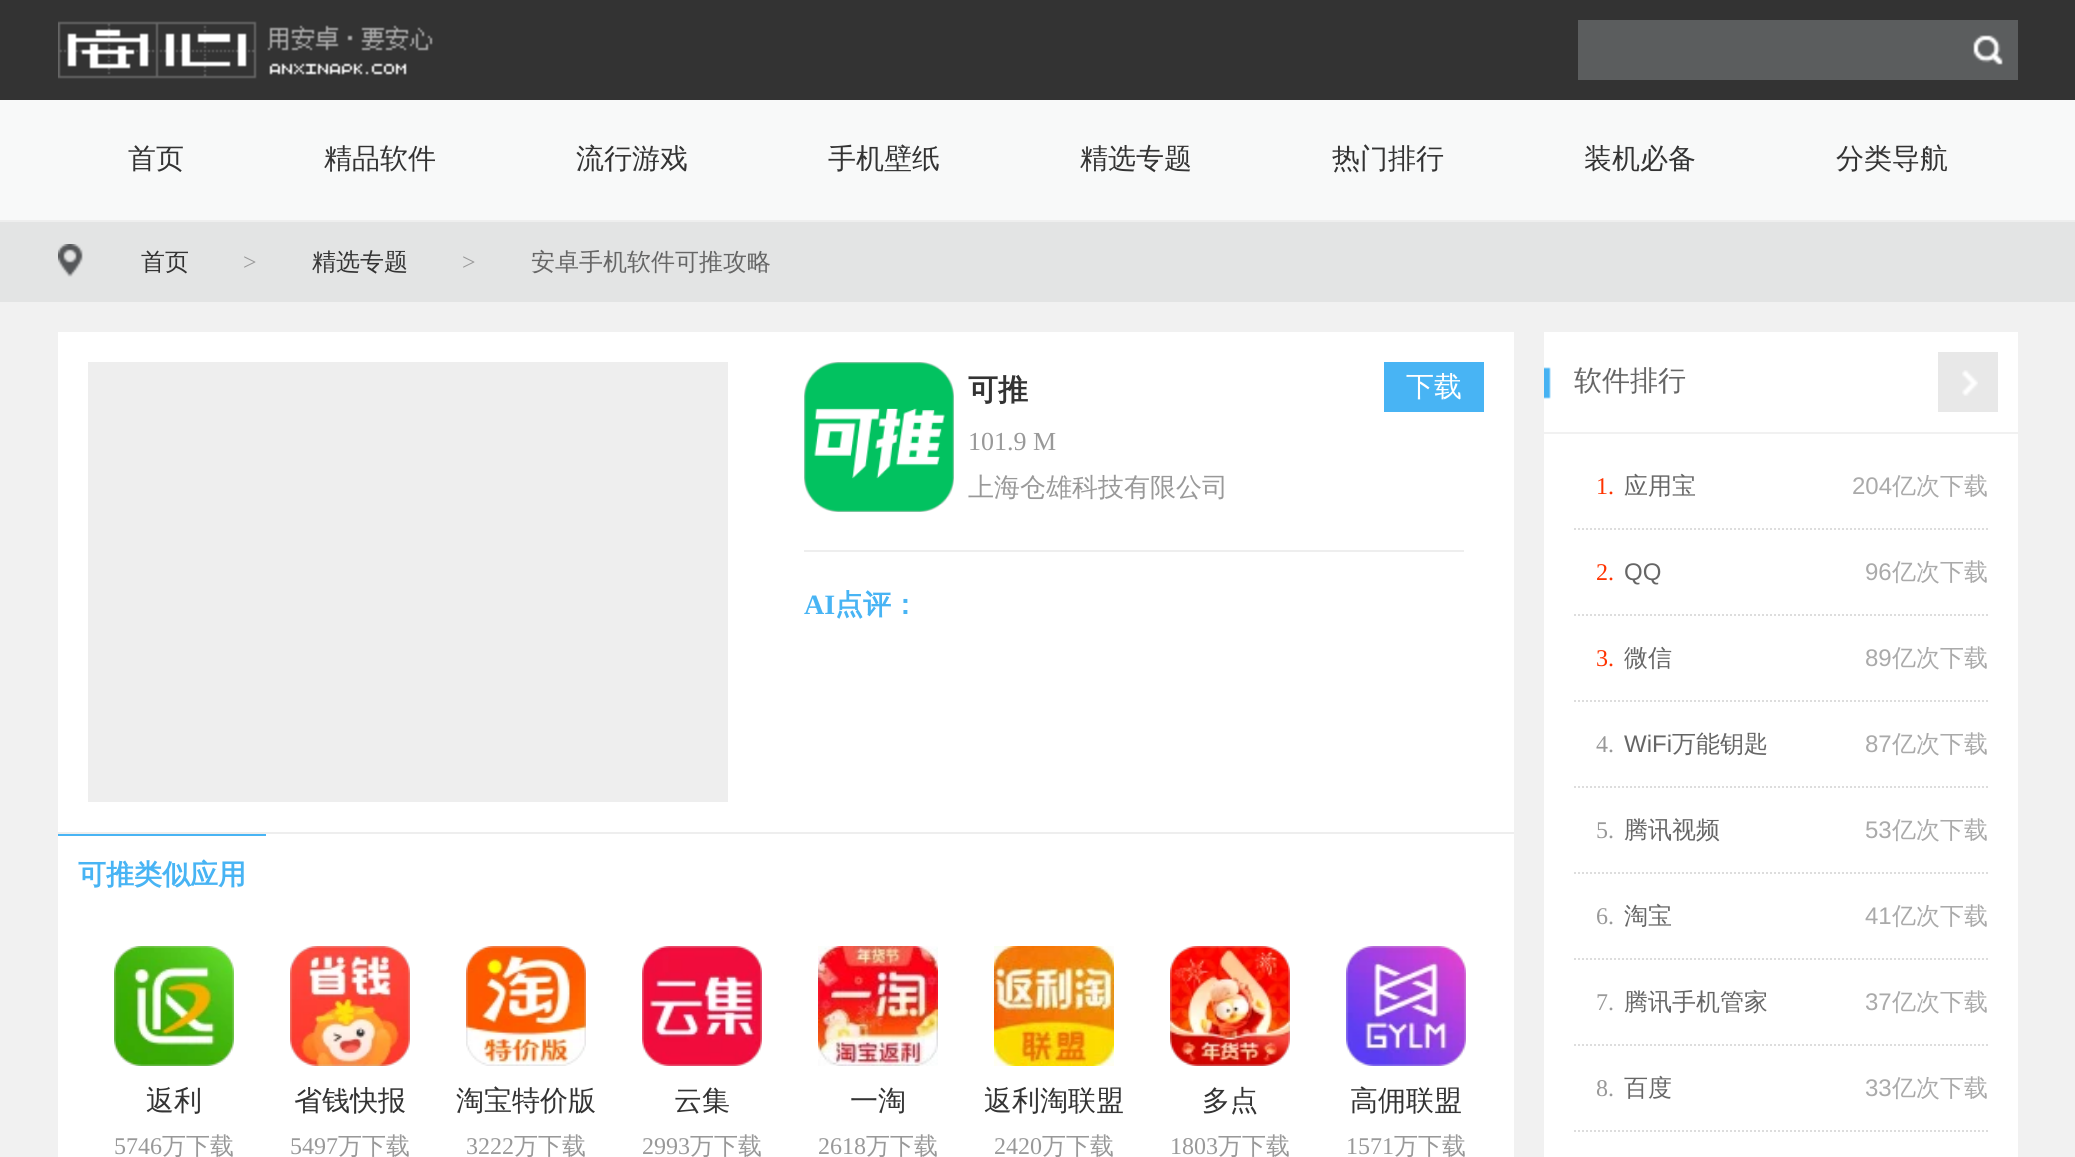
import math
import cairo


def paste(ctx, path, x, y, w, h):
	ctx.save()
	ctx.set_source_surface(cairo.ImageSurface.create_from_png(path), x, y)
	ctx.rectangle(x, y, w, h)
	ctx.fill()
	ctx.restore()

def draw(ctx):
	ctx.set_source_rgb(0.945, 0.945, 0.945)
	ctx.paint()
	ctx.set_source_rgb(0.2, 0.2, 0.2)
	ctx.rectangle(0, 0, 2075, 100)
	ctx.fill()
	paste(ctx, 'media/1.png', 58, 21, 375, 58)
	ctx.set_source_rgb(0.357, 0.365, 0.369)
	ctx.rectangle(1578, 20, 440, 60)
	ctx.fill()
	paste(ctx, 'media/2.png', 1973, 35, 30, 30)
	ctx.set_source_rgb(0.969, 0.973, 0.973)
	ctx.rectangle(0, 100, 2075, 120)
	ctx.fill()
	ctx.set_source_rgb(0.933, 0.933, 0.933)
	ctx.rectangle(0, 220, 2075, 2)
	ctx.fill()
	ctx.select_font_face('WenQuanYi Zen Hei Medium')
	ctx.set_font_size(28)
	ctx.set_source_rgb(0.2, 0.2, 0.2)
	for x, y, s in [
		(128, 168, '首页'),
		(324, 168, '精品软件'),
		(576, 168, '流行游戏'),
		(828, 168, '手机壁纸'),
		(1080, 168, '精选专题'),
		(1332, 168, '热门排行'),
		(1584, 168, '装机必备'),
		(1836, 168, '分类导航'),
	]:
		ctx.move_to(x, y)
		ctx.show_text(s)
	ctx.set_source_rgb(0.89, 0.894, 0.894)
	ctx.rectangle(0, 222, 2075, 80)
	ctx.fill()
	paste(ctx, 'media/3.png', 58, 244, 25, 33)
	ctx.set_font_size(24)
	ctx.set_source_rgb(0.2, 0.2, 0.2)
	ctx.move_to(141, 270)
	ctx.show_text('首页')
	ctx.select_font_face('Liberation Serif')
	ctx.set_source_rgb(0.6, 0.6, 0.6)
	ctx.move_to(243, 270)
	ctx.show_text('>')
	ctx.select_font_face('WenQuanYi Zen Hei Medium')
	ctx.set_source_rgb(0.2, 0.2, 0.2)
	ctx.move_to(312, 270)
	ctx.show_text('精选专题')
	ctx.select_font_face('Liberation Serif')
	ctx.set_source_rgb(0.6, 0.6, 0.6)
	ctx.move_to(462, 270)
	ctx.show_text('>')
	ctx.select_font_face('WenQuanYi Zen Hei Medium')
	ctx.set_source_rgb(0.4, 0.4, 0.4)
	ctx.move_to(531, 270)
	ctx.show_text('安卓手机软件可推攻略')
	ctx.set_source_rgb(1, 1, 1)
	ctx.rectangle(58, 332, 1456, 500)
	ctx.fill()
	ctx.set_source_rgb(0.933, 0.933, 0.933)
	ctx.rectangle(88, 362, 640, 440)
	ctx.rectangle(804, 550, 660, 2)
	ctx.fill()
	paste(ctx, 'media/4.png', 804, 362, 150, 150)
	ctx.select_font_face('WenQuanYi Zen Hei', cairo.FONT_SLANT_NORMAL, cairo.FONT_WEIGHT_BOLD)
	ctx.set_font_size(30)
	ctx.set_source_rgb(0.2, 0.2, 0.2)
	ctx.move_to(968, 400)
	ctx.show_text('可推')
	ctx.set_source_rgb(0.282, 0.706, 0.957)
	ctx.rectangle(1384, 362, 100, 50)
	ctx.fill()
	ctx.select_font_face('WenQuanYi Zen Hei Medium')
	ctx.set_font_size(28)
	ctx.set_source_rgb(1, 1, 1)
	ctx.move_to(1406, 396)
	ctx.show_text('下载')
	ctx.select_font_face('Liberation Serif')
	ctx.set_font_size(26)
	ctx.set_source_rgb(0.6, 0.6, 0.6)
	ctx.move_to(968, 450)
	ctx.show_text('101.9 M')
	ctx.select_font_face('WenQuanYi Zen Hei Medium')
	ctx.move_to(968, 496)
	ctx.show_text('上海仓雄科技有限公司')
	ctx.select_font_face('Liberation Serif', cairo.FONT_SLANT_NORMAL, cairo.FONT_WEIGHT_BOLD)
	ctx.set_font_size(28)
	ctx.set_source_rgb(0.282, 0.706, 0.957)
	ctx.move_to(804, 614)
	ctx.show_text('AI')
	ctx.select_font_face('WenQuanYi Zen Hei', cairo.FONT_SLANT_NORMAL, cairo.FONT_WEIGHT_BOLD)
	ctx.move_to(835, 614)
	ctx.show_text('点评：')
	ctx.set_source_rgb(1, 1, 1)
	ctx.rectangle(58, 834, 1456, 323)
	ctx.fill()
	ctx.set_source_rgb(0.933, 0.933, 0.933)
	ctx.rectangle(58, 832, 1456, 2)
	ctx.fill()
	ctx.set_source_rgb(0.282, 0.706, 0.957)
	ctx.rectangle(58, 834, 208, 2)
	ctx.fill()
	ctx.move_to(78, 884)
	ctx.show_text('可推类似应用')
	paste(ctx, 'media/5.png', 114, 946, 120, 120)
	ctx.select_font_face('WenQuanYi Zen Hei Medium')
	ctx.set_source_rgb(0.2, 0.2, 0.2)
	ctx.move_to(146, 1110)
	ctx.show_text('返利')
	ctx.select_font_face('Liberation Serif')
	ctx.set_font_size(24)
	ctx.set_source_rgb(0.6, 0.6, 0.6)
	ctx.move_to(114, 1154)
	ctx.show_text('5746')
	ctx.select_font_face('WenQuanYi Zen Hei Medium')
	ctx.move_to(162, 1154)
	ctx.show_text('万下载')
	paste(ctx, 'media/6.png', 290, 946, 120, 120)
	ctx.set_font_size(28)
	ctx.set_source_rgb(0.2, 0.2, 0.2)
	ctx.move_to(294, 1110)
	ctx.show_text('省钱快报')
	ctx.select_font_face('Liberation Serif')
	ctx.set_font_size(24)
	ctx.set_source_rgb(0.6, 0.6, 0.6)
	ctx.move_to(290, 1154)
	ctx.show_text('5497')
	ctx.select_font_face('WenQuanYi Zen Hei Medium')
	ctx.move_to(338, 1154)
	ctx.show_text('万下载')
	paste(ctx, 'media/7.png', 466, 946, 120, 120)
	ctx.set_font_size(28)
	ctx.set_source_rgb(0.2, 0.2, 0.2)
	ctx.move_to(456, 1110)
	ctx.show_text('淘宝特价版')
	ctx.select_font_face('Liberation Serif')
	ctx.set_font_size(24)
	ctx.set_source_rgb(0.6, 0.6, 0.6)
	ctx.move_to(466, 1154)
	ctx.show_text('3222')
	ctx.select_font_face('WenQuanYi Zen Hei Medium')
	ctx.move_to(514, 1154)
	ctx.show_text('万下载')
	paste(ctx, 'media/8.png', 642, 946, 120, 120)
	ctx.set_font_size(28)
	ctx.set_source_rgb(0.2, 0.2, 0.2)
	ctx.move_to(674, 1110)
	ctx.show_text('云集')
	ctx.select_font_face('Liberation Serif')
	ctx.set_font_size(24)
	ctx.set_source_rgb(0.6, 0.6, 0.6)
	ctx.move_to(642, 1154)
	ctx.show_text('2993')
	ctx.select_font_face('WenQuanYi Zen Hei Medium')
	ctx.move_to(690, 1154)
	ctx.show_text('万下载')
	paste(ctx, 'media/9.png', 818, 946, 120, 120)
	ctx.set_font_size(28)
	ctx.set_source_rgb(0.2, 0.2, 0.2)
	ctx.move_to(850, 1110)
	ctx.show_text('一淘')
	ctx.select_font_face('Liberation Serif')
	ctx.set_font_size(24)
	ctx.set_source_rgb(0.6, 0.6, 0.6)
	ctx.move_to(818, 1154)
	ctx.show_text('2618')
	ctx.select_font_face('WenQuanYi Zen Hei Medium')
	ctx.move_to(866, 1154)
	ctx.show_text('万下载')
	paste(ctx, 'media/10.png', 994, 946, 120, 120)
	ctx.set_font_size(28)
	ctx.set_source_rgb(0.2, 0.2, 0.2)
	ctx.move_to(984, 1110)
	ctx.show_text('返利淘联盟')
	ctx.select_font_face('Liberation Serif')
	ctx.set_font_size(24)
	ctx.set_source_rgb(0.6, 0.6, 0.6)
	ctx.move_to(994, 1154)
	ctx.show_text('2420')
	ctx.select_font_face('WenQuanYi Zen Hei Medium')
	ctx.move_to(1042, 1154)
	ctx.show_text('万下载')
	paste(ctx, 'media/11.png', 1170, 946, 120, 120)
	ctx.set_font_size(28)
	ctx.set_source_rgb(0.2, 0.2, 0.2)
	ctx.move_to(1202, 1110)
	ctx.show_text('多点')
	ctx.select_font_face('Liberation Serif')
	ctx.set_font_size(24)
	ctx.set_source_rgb(0.6, 0.6, 0.6)
	ctx.move_to(1170, 1154)
	ctx.show_text('1803')
	ctx.select_font_face('WenQuanYi Zen Hei Medium')
	ctx.move_to(1218, 1154)
	ctx.show_text('万下载')
	paste(ctx, 'media/12.png', 1346, 946, 120, 120)
	ctx.set_font_size(28)
	ctx.set_source_rgb(0.2, 0.2, 0.2)
	ctx.move_to(1350, 1110)
	ctx.show_text('高佣联盟')
	ctx.select_font_face('Liberation Serif')
	ctx.set_font_size(24)
	ctx.set_source_rgb(0.6, 0.6, 0.6)
	ctx.move_to(1346, 1154)
	ctx.show_text('1571')
	ctx.select_font_face('WenQuanYi Zen Hei Medium')
	ctx.move_to(1394, 1154)
	ctx.show_text('万下载')
	ctx.set_source_rgb(1, 1, 1)
	ctx.rectangle(1544, 332, 474, 100)
	ctx.fill()
	paste(ctx, 'media/13.png', 1544, 367, 7, 32)
	ctx.set_font_size(28)
	ctx.set_source_rgb(0.4, 0.4, 0.4)
	ctx.move_to(1574, 390)
	ctx.show_text('软件排行')
	ctx.set_source_rgb(0.91, 0.91, 0.91)
	ctx.rectangle(1938, 352, 60, 60)
	ctx.fill()
	paste(ctx, 'media/14.png', 1962, 370, 16, 26)
	ctx.set_source_rgb(1, 1, 1)
	ctx.rectangle(1544, 434, 474, 723)
	ctx.fill()
	ctx.new_path()
	ctx.move_to(1574, 529)
	ctx.line_to(1988, 529)
	ctx.set_source_rgb(0.867, 0.867, 0.867)
	ctx.set_dash([2, 2])
	ctx.stroke()
	ctx.select_font_face('Liberation Serif')
	ctx.set_font_size(24)
	ctx.set_source_rgb(1, 0.2, 0)
	ctx.move_to(1596, 494)
	ctx.show_text('1.')
	ctx.select_font_face('WenQuanYi Zen Hei Medium')
	ctx.set_source_rgb(0.4, 0.4, 0.4)
	ctx.move_to(1624, 494)
	ctx.show_text('应用宝')
	ctx.select_font_face('Liberation Sans')
	ctx.set_source_rgb(0.667, 0.667, 0.667)
	ctx.move_to(1852, 494)
	ctx.show_text('204')
	ctx.select_font_face('WenQuanYi Zen Hei Medium')
	ctx.move_to(1892, 494)
	ctx.show_text('亿次下载')
	ctx.new_path()
	ctx.move_to(1574, 615)
	ctx.line_to(1988, 615)
	ctx.set_source_rgb(0.867, 0.867, 0.867)
	ctx.stroke()
	ctx.select_font_face('Liberation Serif')
	ctx.set_source_rgb(1, 0.2, 0)
	ctx.move_to(1596, 580)
	ctx.show_text('2.')
	ctx.select_font_face('Liberation Sans')
	ctx.set_source_rgb(0.4, 0.4, 0.4)
	ctx.move_to(1624, 580)
	ctx.show_text('QQ')
	ctx.set_source_rgb(0.667, 0.667, 0.667)
	ctx.move_to(1865, 580)
	ctx.show_text('96')
	ctx.select_font_face('WenQuanYi Zen Hei Medium')
	ctx.move_to(1892, 580)
	ctx.show_text('亿次下载')
	ctx.new_path()
	ctx.move_to(1574, 701)
	ctx.line_to(1988, 701)
	ctx.set_source_rgb(0.867, 0.867, 0.867)
	ctx.stroke()
	ctx.select_font_face('Liberation Serif')
	ctx.set_source_rgb(1, 0.2, 0)
	ctx.move_to(1596, 666)
	ctx.show_text('3.')
	ctx.select_font_face('WenQuanYi Zen Hei Medium')
	ctx.set_source_rgb(0.4, 0.4, 0.4)
	ctx.move_to(1624, 666)
	ctx.show_text('微信')
	ctx.select_font_face('Liberation Sans')
	ctx.set_source_rgb(0.667, 0.667, 0.667)
	ctx.move_to(1865, 666)
	ctx.show_text('89')
	ctx.select_font_face('WenQuanYi Zen Hei Medium')
	ctx.move_to(1892, 666)
	ctx.show_text('亿次下载')
	ctx.new_path()
	ctx.move_to(1574, 787)
	ctx.line_to(1988, 787)
	ctx.set_source_rgb(0.867, 0.867, 0.867)
	ctx.stroke()
	ctx.select_font_face('Liberation Serif')
	ctx.set_source_rgb(0.6, 0.6, 0.6)
	ctx.move_to(1596, 752)
	ctx.show_text('4.')
	ctx.select_font_face('Liberation Sans')
	ctx.set_source_rgb(0.4, 0.4, 0.4)
	ctx.move_to(1624, 752)
	ctx.show_text('WiFi')
	ctx.select_font_face('WenQuanYi Zen Hei Medium')
	ctx.move_to(1672, 752)
	ctx.show_text('万能钥匙')
	ctx.select_font_face('Liberation Sans')
	ctx.set_source_rgb(0.667, 0.667, 0.667)
	ctx.move_to(1865, 752)
	ctx.show_text('87')
	ctx.select_font_face('WenQuanYi Zen Hei Medium')
	ctx.move_to(1892, 752)
	ctx.show_text('亿次下载')
	ctx.new_path()
	ctx.move_to(1574, 873)
	ctx.line_to(1988, 873)
	ctx.set_source_rgb(0.867, 0.867, 0.867)
	ctx.stroke()
	ctx.select_font_face('Liberation Serif')
	ctx.set_source_rgb(0.6, 0.6, 0.6)
	ctx.move_to(1596, 838)
	ctx.show_text('5.')
	ctx.select_font_face('WenQuanYi Zen Hei Medium')
	ctx.set_source_rgb(0.4, 0.4, 0.4)
	ctx.move_to(1624, 838)
	ctx.show_text('腾讯视频')
	ctx.select_font_face('Liberation Sans')
	ctx.set_source_rgb(0.667, 0.667, 0.667)
	ctx.move_to(1865, 838)
	ctx.show_text('53')
	ctx.select_font_face('WenQuanYi Zen Hei Medium')
	ctx.move_to(1892, 838)
	ctx.show_text('亿次下载')
	ctx.new_path()
	ctx.move_to(1574, 959)
	ctx.line_to(1988, 959)
	ctx.set_source_rgb(0.867, 0.867, 0.867)
	ctx.stroke()
	ctx.select_font_face('Liberation Serif')
	ctx.set_source_rgb(0.6, 0.6, 0.6)
	ctx.move_to(1596, 924)
	ctx.show_text('6.')
	ctx.select_font_face('WenQuanYi Zen Hei Medium')
	ctx.set_source_rgb(0.4, 0.4, 0.4)
	ctx.move_to(1624, 924)
	ctx.show_text('淘宝')
	ctx.select_font_face('Liberation Sans')
	ctx.set_source_rgb(0.667, 0.667, 0.667)
	ctx.move_to(1865, 924)
	ctx.show_text('41')
	ctx.select_font_face('WenQuanYi Zen Hei Medium')
	ctx.move_to(1892, 924)
	ctx.show_text('亿次下载')
	ctx.new_path()
	ctx.move_to(1574, 1045)
	ctx.line_to(1988, 1045)
	ctx.set_source_rgb(0.867, 0.867, 0.867)
	ctx.stroke()
	ctx.select_font_face('Liberation Serif')
	ctx.set_source_rgb(0.6, 0.6, 0.6)
	ctx.move_to(1596, 1010)
	ctx.show_text('7.')
	ctx.select_font_face('WenQuanYi Zen Hei Medium')
	ctx.set_source_rgb(0.4, 0.4, 0.4)
	ctx.move_to(1624, 1010)
	ctx.show_text('腾讯手机管家')
	ctx.select_font_face('Liberation Sans')
	ctx.set_source_rgb(0.667, 0.667, 0.667)
	ctx.move_to(1865, 1010)
	ctx.show_text('37')
	ctx.select_font_face('WenQuanYi Zen Hei Medium')
	ctx.move_to(1892, 1010)
	ctx.show_text('亿次下载')
	ctx.new_path()
	ctx.move_to(1574, 1131)
	ctx.line_to(1988, 1131)
	ctx.set_source_rgb(0.867, 0.867, 0.867)
	ctx.stroke()
	ctx.select_font_face('Liberation Serif')
	ctx.set_source_rgb(0.6, 0.6, 0.6)
	ctx.move_to(1596, 1096)
	ctx.show_text('8.')
	ctx.select_font_face('WenQuanYi Zen Hei Medium')
	ctx.set_source_rgb(0.4, 0.4, 0.4)
	ctx.move_to(1624, 1096)
	ctx.show_text('百度')
	ctx.select_font_face('Liberation Sans')
	ctx.set_source_rgb(0.667, 0.667, 0.667)
	ctx.move_to(1865, 1096)
	ctx.show_text('33')
	ctx.select_font_face('WenQuanYi Zen Hei Medium')
	ctx.move_to(1892, 1096)
	ctx.show_text('亿次下载')


surface = cairo.ImageSurface(cairo.FORMAT_RGB24, 2075, 1157)
ctx = cairo.Context(surface)
options = cairo.FontOptions()
options.set_hint_metrics(cairo.HINT_METRICS_OFF)
options.set_hint_style(cairo.HINT_STYLE_NONE)
ctx.set_font_options(options)
ctx.set_miter_limit(4)
draw(ctx)
surface.write_to_png('image.png')
